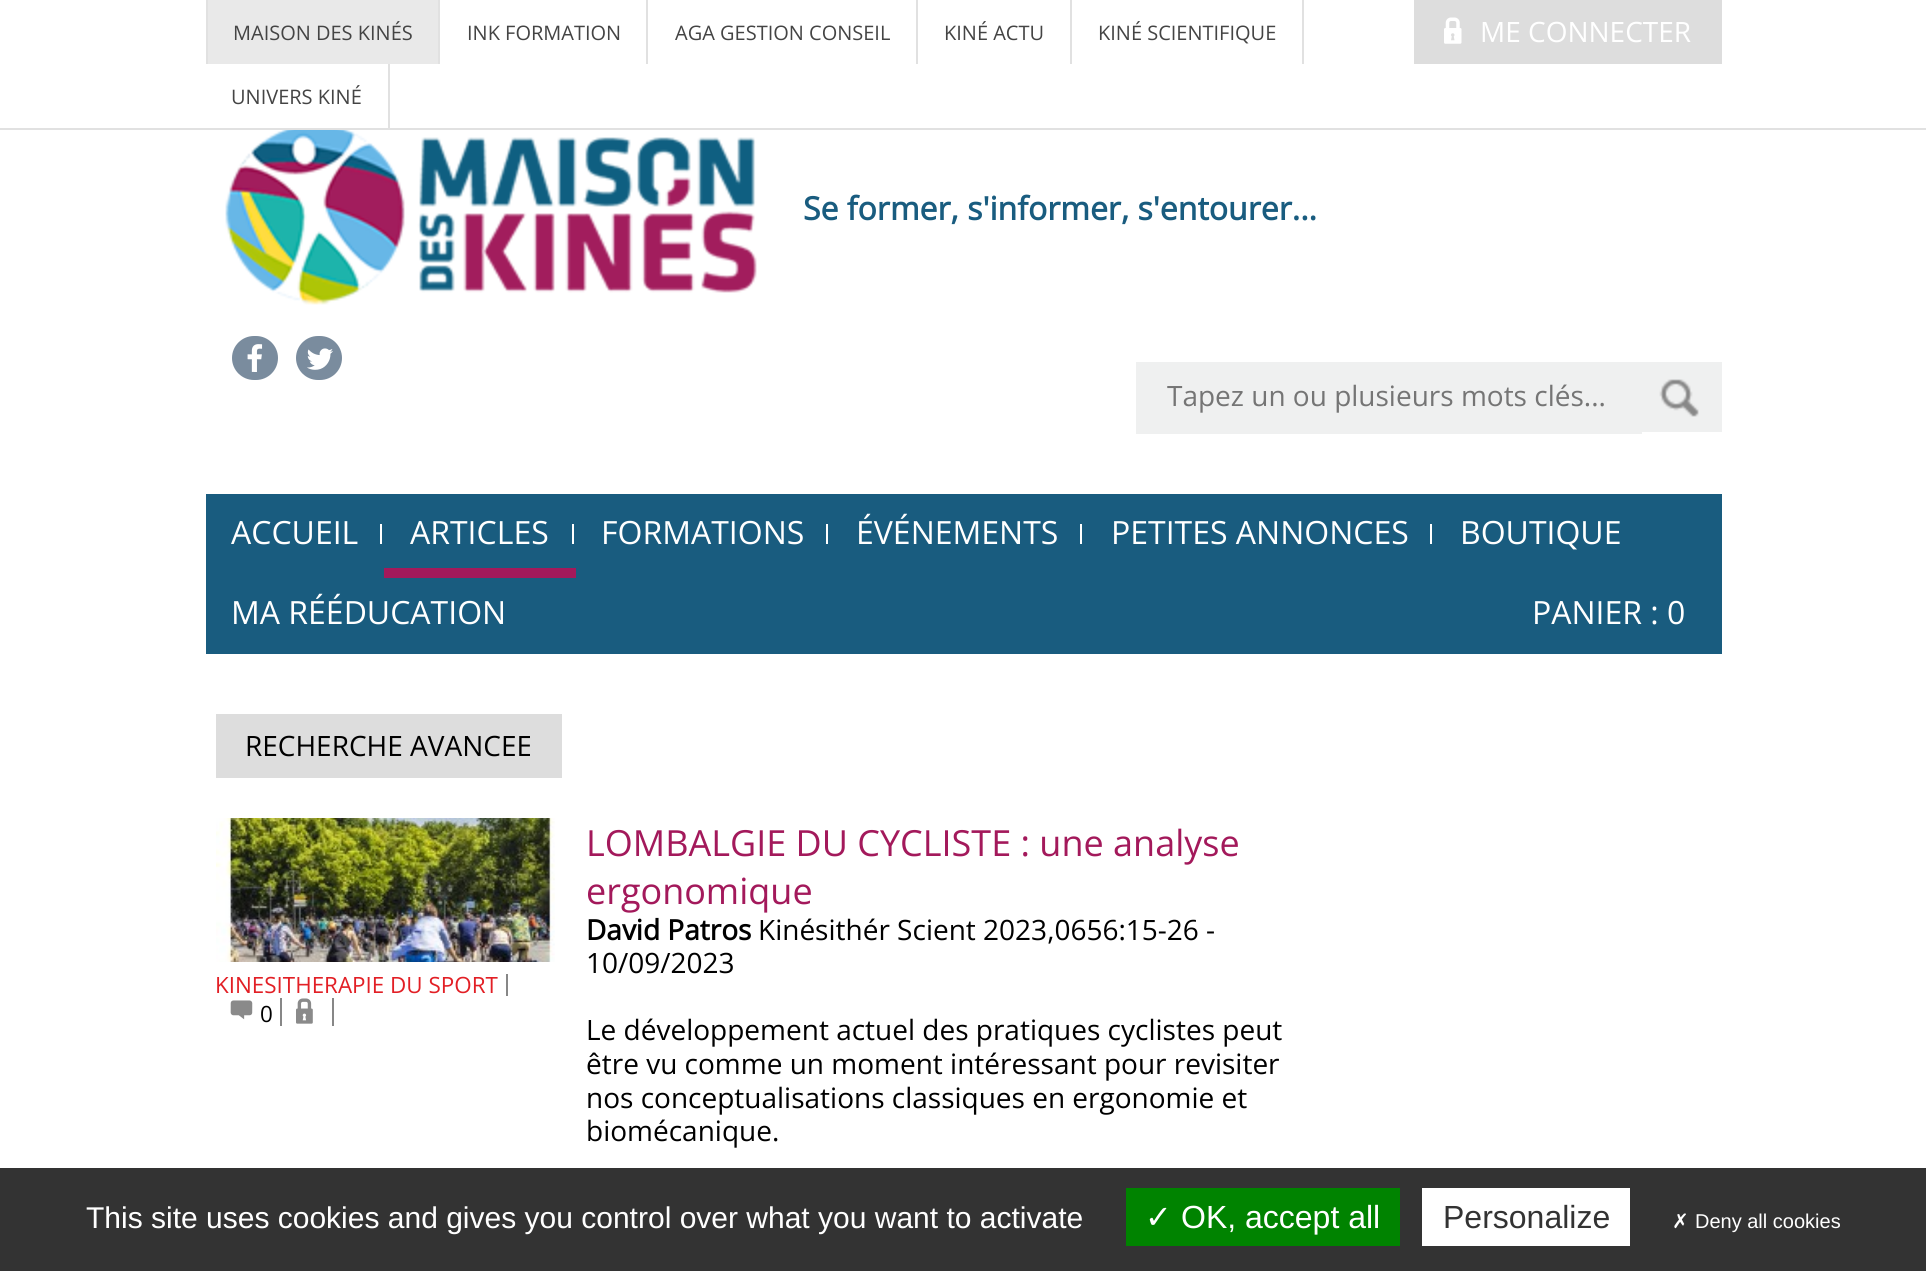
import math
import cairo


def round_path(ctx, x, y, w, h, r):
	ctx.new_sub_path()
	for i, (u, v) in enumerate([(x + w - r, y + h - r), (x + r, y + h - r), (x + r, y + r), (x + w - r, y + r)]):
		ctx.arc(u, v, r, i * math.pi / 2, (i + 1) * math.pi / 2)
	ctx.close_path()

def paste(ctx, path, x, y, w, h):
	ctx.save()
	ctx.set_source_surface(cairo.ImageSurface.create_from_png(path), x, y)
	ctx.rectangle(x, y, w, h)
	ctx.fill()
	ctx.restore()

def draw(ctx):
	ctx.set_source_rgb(1, 1, 1)
	ctx.paint()
	ctx.set_source_rgb(0.882, 0.882, 0.882)
	ctx.rectangle(0, 128, 1926, 2)
	ctx.fill()
	ctx.set_source_rgb(0.914, 0.914, 0.914)
	ctx.rectangle(208, 0, 230, 64)
	ctx.fill()
	ctx.set_source_rgb(0.882, 0.882, 0.882)
	ctx.rectangle(438, 0, 2, 64)
	ctx.rectangle(206, 0, 2, 64)
	ctx.fill()
	ctx.select_font_face('Open Sans')
	ctx.set_font_size(20)
	ctx.set_source_rgb(0.267, 0.267, 0.267)
	ctx.move_to(233, 40)
	ctx.show_text('MAISON DES KINÉS')
	ctx.set_source_rgb(0.882, 0.882, 0.882)
	ctx.rectangle(646, 0, 2, 64)
	ctx.fill()
	ctx.set_source_rgb(0.267, 0.267, 0.267)
	ctx.move_to(467, 40)
	ctx.show_text('INK FORMATION')
	ctx.set_source_rgb(0.882, 0.882, 0.882)
	ctx.rectangle(916, 0, 2, 64)
	ctx.fill()
	ctx.set_source_rgb(0.267, 0.267, 0.267)
	ctx.move_to(675, 40)
	ctx.show_text('AGA GESTION CONSEIL')
	ctx.set_source_rgb(0.882, 0.882, 0.882)
	ctx.rectangle(1070, 0, 2, 64)
	ctx.fill()
	ctx.set_source_rgb(0.267, 0.267, 0.267)
	ctx.move_to(944, 40)
	ctx.show_text('KINÉ ACTU')
	ctx.set_source_rgb(0.882, 0.882, 0.882)
	ctx.rectangle(1302, 0, 2, 64)
	ctx.fill()
	ctx.set_source_rgb(0.267, 0.267, 0.267)
	ctx.move_to(1098, 40)
	ctx.show_text('KINÉ SCIENTIFIQUE')
	ctx.set_source_rgb(0.882, 0.882, 0.882)
	ctx.rectangle(388, 64, 2, 64)
	ctx.fill()
	ctx.set_source_rgb(0.267, 0.267, 0.267)
	ctx.move_to(231, 104)
	ctx.show_text('UNIVERS KINÉ')
	ctx.set_source_rgb(0.867, 0.867, 0.867)
	ctx.rectangle(1414, 0, 308, 64)
	ctx.fill()
	paste(ctx, 'media/1.png', 1444, 17, 18, 27)
	ctx.set_font_size(28)
	ctx.set_source_rgb(1, 1, 1)
	ctx.move_to(1480, 42)
	ctx.show_text('ME CONNECTER')
	paste(ctx, 'media/2.png', 225, 130, 532, 175)
	ctx.select_font_face('Open Sans', cairo.FONT_SLANT_NORMAL, cairo.FONT_WEIGHT_BOLD)
	ctx.set_font_size(32)
	ctx.set_source_rgb(0.098, 0.361, 0.498)
	ctx.move_to(803, 220)
	ctx.show_text('Se former, s\'informer, s\'entourer...')
	ctx.set_source_rgb(0.478, 0.549, 0.62)
	round_path(ctx, 232, 336, 46, 44, 22)
	ctx.fill()
	paste(ctx, 'media/3.png', 247, 344, 16, 28)
	round_path(ctx, 296, 336, 46, 44, 22)
	ctx.fill()
	paste(ctx, 'media/4.png', 307, 348, 26, 22)
	ctx.set_source_rgb(0.937, 0.941, 0.941)
	ctx.rectangle(1136, 362, 506, 72)
	ctx.fill()
	ctx.select_font_face('Open Sans')
	ctx.set_font_size(28)
	ctx.set_source_rgb(0.459, 0.459, 0.459)
	ctx.move_to(1167, 406)
	ctx.show_text('Tapez un ou plusieurs mots clés...')
	paste(ctx, 'media/5.png', 1642, 362, 80, 70)
	ctx.set_source_rgb(0.098, 0.361, 0.498)
	ctx.rectangle(206, 494, 1516, 160)
	ctx.fill()
	ctx.set_font_size(32)
	ctx.set_source_rgb(1, 1, 1)
	ctx.move_to(231, 544)
	ctx.show_text('ACCUEIL')
	ctx.set_source_rgb(0.639, 0.098, 0.357)
	ctx.rectangle(384, 568, 192, 10)
	ctx.fill()
	ctx.set_source_rgb(1, 1, 1)
	ctx.rectangle(380, 524, 2, 20)
	ctx.fill()
	ctx.move_to(410, 544)
	ctx.show_text('ARTICLES')
	ctx.rectangle(572, 524, 2, 20)
	ctx.fill()
	ctx.move_to(601, 544)
	ctx.show_text('FORMATIONS')
	ctx.rectangle(826, 524, 2, 20)
	ctx.fill()
	ctx.move_to(856, 544)
	ctx.show_text('ÉVÉNEMENTS')
	ctx.rectangle(1080, 524, 2, 20)
	ctx.fill()
	ctx.move_to(1111, 544)
	ctx.show_text('PETITES ANNONCES')
	ctx.rectangle(1430, 524, 2, 20)
	ctx.fill()
	for x, y, s in [
		(1460, 544, 'BOUTIQUE'),
		(231, 624, 'MA RÉÉDUCATION'),
		(1532, 624, 'PANIER : 0'),
	]:
		ctx.move_to(x, y)
		ctx.show_text(s)
	ctx.set_source_rgb(0.867, 0.867, 0.867)
	ctx.rectangle(216, 714, 346, 64)
	ctx.fill()
	ctx.set_font_size(28)
	ctx.set_source_rgb(0, 0, 0)
	ctx.move_to(245, 756)
	ctx.show_text('RECHERCHE AVANCEE')
	paste(ctx, 'media/6.png', 216, 818, 339, 144)
	ctx.set_source_rgb(0.529, 0.529, 0.529)
	ctx.rectangle(506, 974, 2, 22)
	ctx.fill()
	ctx.set_font_size(22.4)
	ctx.set_source_rgb(0.886, 0.122, 0.145)
	ctx.move_to(215, 993)
	ctx.show_text('KINESITHERAPIE DU SPORT')
	ctx.set_source_rgb(0.529, 0.529, 0.529)
	ctx.rectangle(280, 998, 2, 28)
	ctx.fill()
	paste(ctx, 'media/7.png', 230, 1000, 23, 20)
	ctx.set_source_rgb(0, 0, 0)
	ctx.move_to(260, 1022)
	ctx.show_text('0')
	ctx.set_source_rgb(0.529, 0.529, 0.529)
	ctx.rectangle(332, 998, 2, 28)
	ctx.fill()
	paste(ctx, 'media/8.png', 296, 998, 17, 26)
	ctx.set_font_size(36)
	ctx.set_source_rgb(0.639, 0.098, 0.357)
	ctx.move_to(586, 856)
	ctx.show_text('LOMBALGIE DU CYCLISTE : une analyse')
	ctx.move_to(586, 904)
	ctx.show_text('ergonomique')
	ctx.select_font_face('Open Sans', cairo.FONT_SLANT_NORMAL, cairo.FONT_WEIGHT_BOLD)
	ctx.set_font_size(28)
	ctx.set_source_rgb(0, 0, 0)
	ctx.move_to(586, 940)
	ctx.show_text('David Patros')
	ctx.select_font_face('Open Sans')
	for x, y, s in [
		(758, 940, 'Kinésithér Scient 2023,0656:15-26 -'),
		(586, 973, '10/09/2023'),
		(586, 1040, 'Le développement actuel des pratiques cyclistes peut'),
		(586, 1074, 'être vu comme un moment intéressant pour revisiter'),
		(586, 1108, 'nos conceptualisations classiques en ergonomie et'),
		(586, 1141, 'biomécanique.'),
	]:
		ctx.move_to(x, y)
		ctx.show_text(s)
	ctx.set_source_rgb(0.2, 0.2, 0.2)
	ctx.rectangle(0, 1168, 1926, 103)
	ctx.fill()
	ctx.select_font_face('Liberation Sans')
	ctx.set_font_size(30)
	ctx.set_source_rgb(1, 1, 1)
	ctx.move_to(86, 1228)
	ctx.show_text('This site uses cookies and gives you control over what you want to activate')
	ctx.set_source_rgb(0, 0.514, 0)
	ctx.rectangle(1126, 1188, 274, 58)
	ctx.fill()
	ctx.select_font_face('DejaVu Sans')
	ctx.set_font_size(32)
	ctx.set_source_rgb(1, 1, 1)
	ctx.move_to(1145, 1228)
	ctx.show_text('✓')
	ctx.select_font_face('Liberation Sans')
	ctx.move_to(1181, 1228)
	ctx.show_text('OK, accept all')
	ctx.rectangle(1422, 1188, 208, 58)
	ctx.fill()
	ctx.set_source_rgb(0.2, 0.2, 0.2)
	ctx.move_to(1443, 1228)
	ctx.show_text('Personalize')
	ctx.select_font_face('DejaVu Sans')
	ctx.set_font_size(20)
	ctx.set_source_rgb(1, 1, 1)
	ctx.move_to(1672, 1228)
	ctx.show_text('✗')
	ctx.select_font_face('Liberation Sans')
	ctx.move_to(1695, 1228)
	ctx.show_text('Deny all cookies')


surface = cairo.ImageSurface(cairo.FORMAT_RGB24, 1926, 1271)
ctx = cairo.Context(surface)
options = cairo.FontOptions()
options.set_hint_metrics(cairo.HINT_METRICS_OFF)
options.set_hint_style(cairo.HINT_STYLE_NONE)
ctx.set_font_options(options)
ctx.set_miter_limit(4)
draw(ctx)
surface.write_to_png('image.png')
